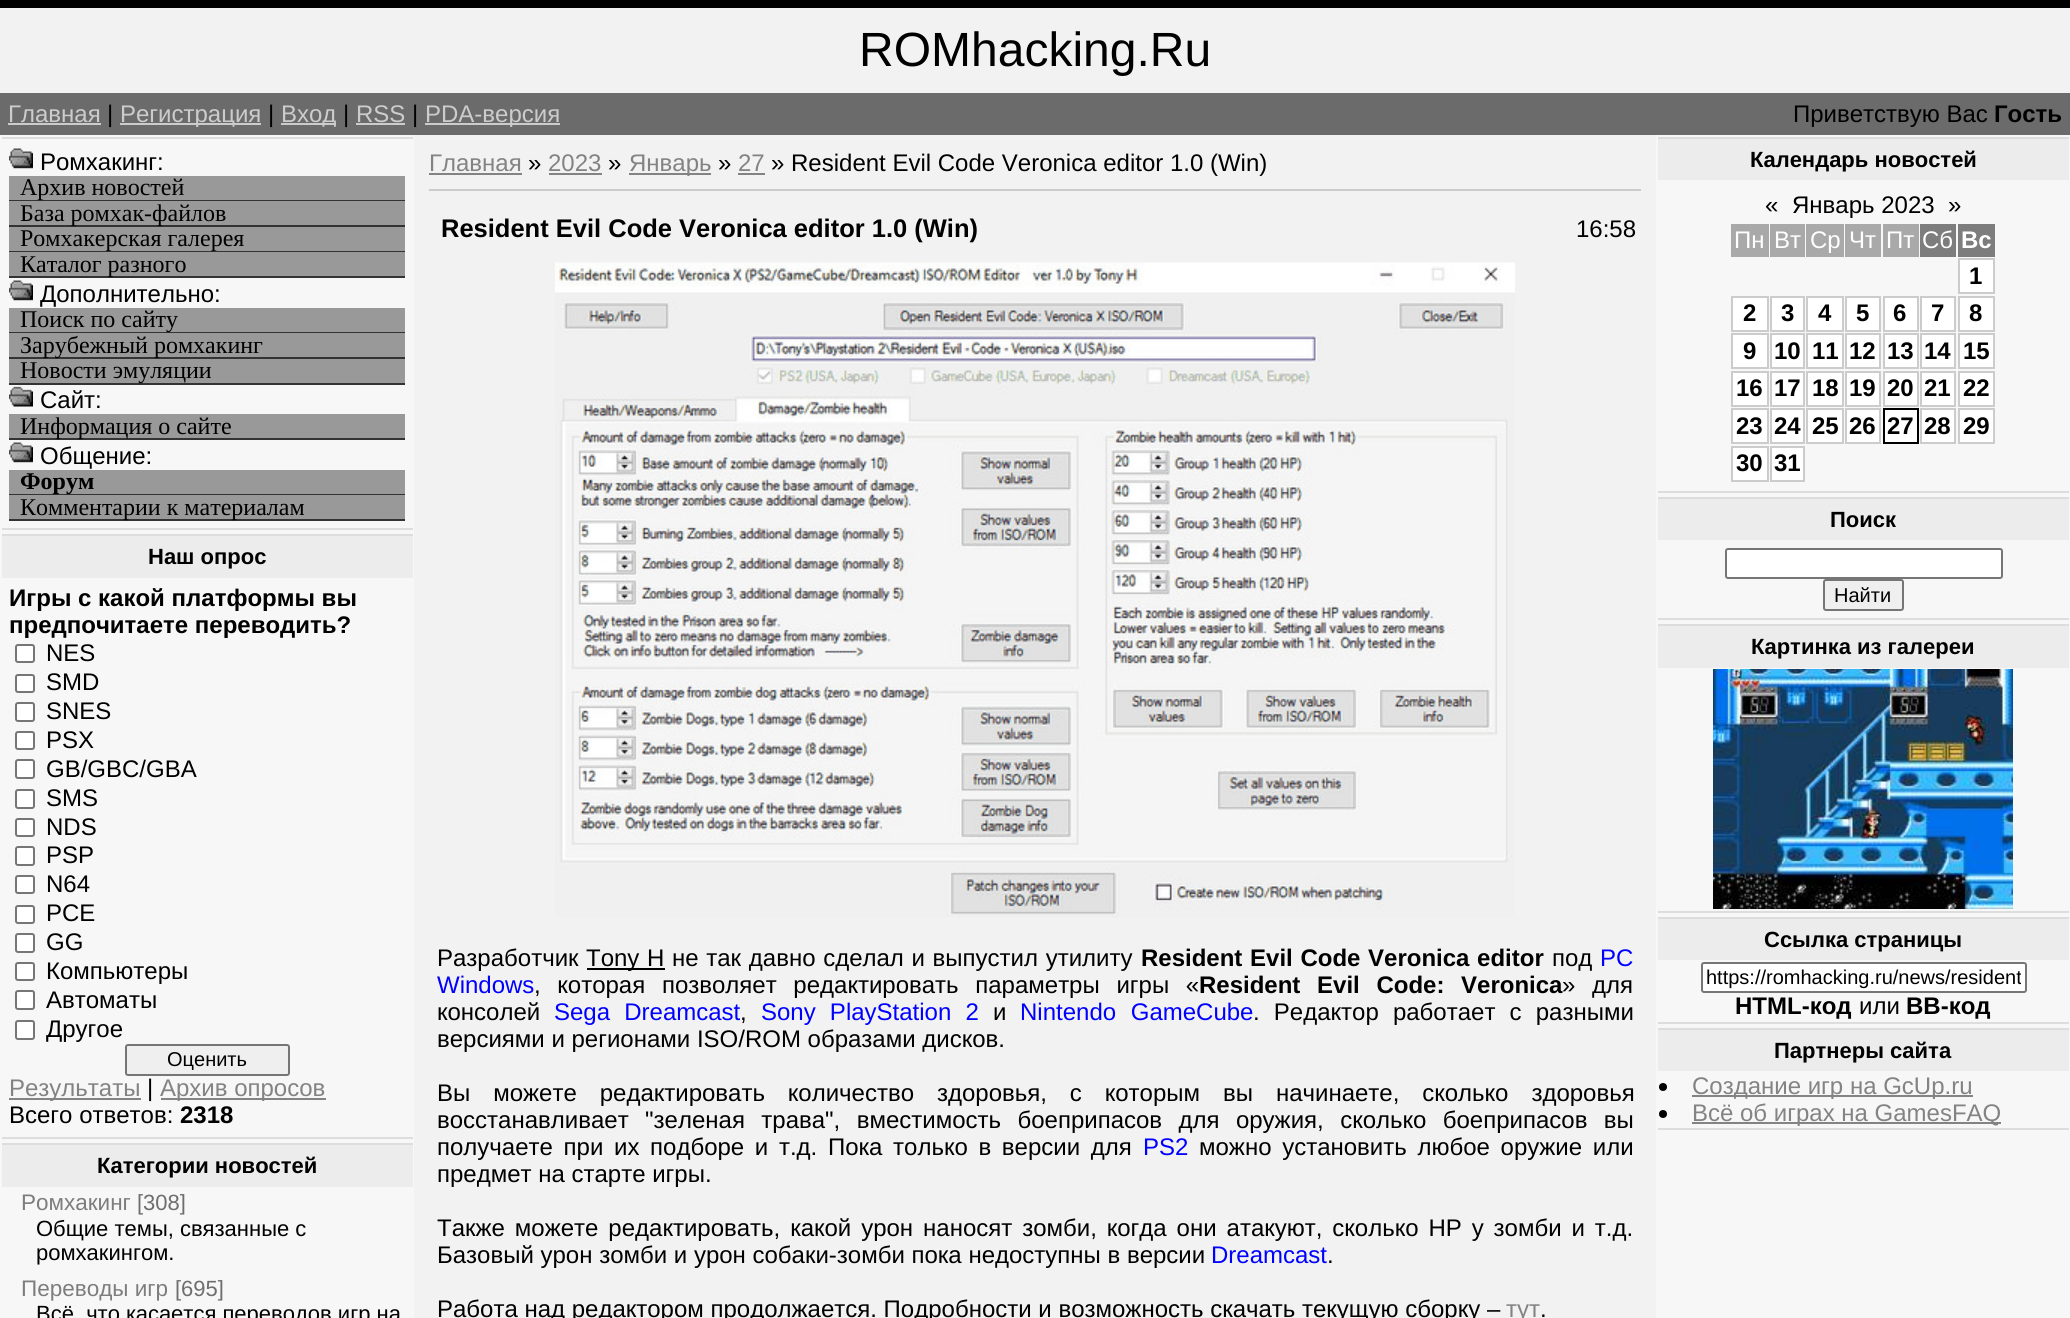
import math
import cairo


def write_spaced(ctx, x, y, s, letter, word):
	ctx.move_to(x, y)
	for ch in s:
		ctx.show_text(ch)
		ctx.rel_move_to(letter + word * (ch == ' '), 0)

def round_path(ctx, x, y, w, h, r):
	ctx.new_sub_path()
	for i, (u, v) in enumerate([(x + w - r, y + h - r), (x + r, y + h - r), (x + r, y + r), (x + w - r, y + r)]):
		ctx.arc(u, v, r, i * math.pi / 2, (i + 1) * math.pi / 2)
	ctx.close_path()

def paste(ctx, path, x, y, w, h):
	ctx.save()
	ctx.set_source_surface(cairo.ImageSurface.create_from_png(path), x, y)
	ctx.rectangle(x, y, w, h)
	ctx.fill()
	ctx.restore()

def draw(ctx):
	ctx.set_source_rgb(0.949, 0.949, 0.949)
	ctx.paint()
	ctx.set_source_rgb(0, 0, 0)
	ctx.rectangle(0, 0, 2070, 8)
	ctx.fill()
	ctx.select_font_face('Liberation Sans')
	ctx.set_font_size(48)
	ctx.move_to(859, 66)
	ctx.show_text('ROMhacking.Ru')
	ctx.set_source_rgb(0.42, 0.42, 0.42)
	ctx.rectangle(0, 93, 2070, 42)
	ctx.fill()
	ctx.set_font_size(24)
	ctx.set_source_rgb(0.8, 0.8, 0.8)
	ctx.move_to(8, 122)
	ctx.show_text('Главная')
	ctx.rectangle(8, 123, 93, 2)
	ctx.fill()
	ctx.set_source_rgb(0, 0, 0)
	ctx.move_to(107, 122)
	ctx.show_text('|')
	ctx.set_source_rgb(0.8, 0.8, 0.8)
	ctx.rectangle(120, 123, 141, 2)
	ctx.fill()
	ctx.move_to(120, 122)
	ctx.show_text('Регистрация')
	ctx.set_source_rgb(0, 0, 0)
	ctx.move_to(268, 122)
	ctx.show_text('|')
	ctx.set_source_rgb(0.8, 0.8, 0.8)
	ctx.rectangle(281, 123, 55, 2)
	ctx.fill()
	ctx.move_to(281, 122)
	ctx.show_text('Вход')
	ctx.set_source_rgb(0, 0, 0)
	ctx.move_to(343, 122)
	ctx.show_text('|')
	ctx.set_source_rgb(0.8, 0.8, 0.8)
	ctx.move_to(356, 122)
	ctx.show_text('RSS')
	ctx.rectangle(356, 123, 49, 2)
	ctx.fill()
	ctx.set_source_rgb(0, 0, 0)
	ctx.move_to(412, 122)
	ctx.show_text('|')
	ctx.set_source_rgb(0.8, 0.8, 0.8)
	ctx.rectangle(425, 123, 135, 2)
	ctx.fill()
	ctx.move_to(425, 122)
	ctx.show_text('PDA-версия')
	ctx.set_source_rgb(0, 0, 0)
	ctx.move_to(1793, 122)
	ctx.show_text('Приветствую Вас')
	ctx.select_font_face('Liberation Sans', cairo.FONT_SLANT_NORMAL, cairo.FONT_WEIGHT_BOLD)
	ctx.move_to(1994, 122)
	ctx.show_text('Гость')
	ctx.set_source_rgb(0.965, 0.965, 0.965)
	ctx.rectangle(0, 135, 414, 1183)
	ctx.fill()
	ctx.set_source_rgb(0.867, 0.867, 0.867)
	ctx.rectangle(2, 137, 411, 2)
	ctx.rectangle(2, 528, 411, 2)
	ctx.fill()
	paste(ctx, 'media/1.png', 9, 148, 24, 21)
	ctx.select_font_face('Liberation Sans')
	ctx.set_source_rgb(0, 0, 0)
	ctx.move_to(40, 170)
	ctx.show_text('Ромхакинг:')
	ctx.set_source_rgb(0.6, 0.6, 0.6)
	ctx.rectangle(9, 176, 396, 24)
	ctx.fill()
	ctx.set_source_rgb(0.2, 0.2, 0.2)
	ctx.rectangle(9, 200, 396, 1)
	ctx.fill()
	ctx.select_font_face('Liberation Serif')
	ctx.set_source_rgb(0, 0, 0)
	ctx.move_to(20, 195)
	ctx.show_text('Архив новостей')
	ctx.set_source_rgb(0.6, 0.6, 0.6)
	ctx.rectangle(9, 201, 396, 24)
	ctx.fill()
	ctx.set_source_rgb(0.2, 0.2, 0.2)
	ctx.rectangle(9, 225, 396, 2)
	ctx.fill()
	ctx.set_source_rgb(0, 0, 0)
	ctx.move_to(20, 221)
	ctx.show_text('База ромхак-файлов')
	ctx.set_source_rgb(0.6, 0.6, 0.6)
	ctx.rectangle(9, 227, 396, 24)
	ctx.fill()
	ctx.set_source_rgb(0.2, 0.2, 0.2)
	ctx.rectangle(9, 251, 396, 1)
	ctx.fill()
	ctx.set_source_rgb(0, 0, 0)
	ctx.move_to(20, 246)
	ctx.show_text('Ромхакерская галерея')
	ctx.set_source_rgb(0.6, 0.6, 0.6)
	ctx.rectangle(9, 252, 396, 24)
	ctx.fill()
	ctx.set_source_rgb(0.2, 0.2, 0.2)
	ctx.rectangle(9, 276, 396, 2)
	ctx.fill()
	ctx.set_source_rgb(0, 0, 0)
	ctx.move_to(20, 272)
	ctx.show_text('Каталог разного')
	paste(ctx, 'media/1.png', 9, 280, 24, 21)
	ctx.select_font_face('Liberation Sans')
	ctx.move_to(40, 302)
	ctx.show_text('Дополнительно:')
	ctx.set_source_rgb(0.6, 0.6, 0.6)
	ctx.rectangle(9, 308, 396, 24)
	ctx.fill()
	ctx.set_source_rgb(0.2, 0.2, 0.2)
	ctx.rectangle(9, 332, 396, 1)
	ctx.fill()
	ctx.select_font_face('Liberation Serif')
	ctx.set_source_rgb(0, 0, 0)
	ctx.move_to(20, 327)
	ctx.show_text('Поиск по сайту')
	ctx.set_source_rgb(0.6, 0.6, 0.6)
	ctx.rectangle(9, 333, 396, 24)
	ctx.fill()
	ctx.set_source_rgb(0.2, 0.2, 0.2)
	ctx.rectangle(9, 357, 396, 2)
	ctx.fill()
	ctx.set_source_rgb(0, 0, 0)
	ctx.move_to(20, 353)
	ctx.show_text('Зарубежный ромхакинг')
	ctx.set_source_rgb(0.6, 0.6, 0.6)
	ctx.rectangle(9, 359, 396, 24)
	ctx.fill()
	ctx.set_source_rgb(0.2, 0.2, 0.2)
	ctx.rectangle(9, 383, 396, 2)
	ctx.fill()
	ctx.set_source_rgb(0, 0, 0)
	ctx.move_to(20, 378)
	ctx.show_text('Новости эмуляции')
	paste(ctx, 'media/2.png', 9, 386, 24, 21)
	ctx.select_font_face('Liberation Sans')
	ctx.move_to(40, 408)
	ctx.show_text('Cайт:')
	ctx.set_source_rgb(0.6, 0.6, 0.6)
	ctx.rectangle(9, 414, 396, 24)
	ctx.fill()
	ctx.set_source_rgb(0.2, 0.2, 0.2)
	ctx.rectangle(9, 438, 396, 2)
	ctx.fill()
	ctx.select_font_face('Liberation Serif')
	ctx.set_source_rgb(0, 0, 0)
	ctx.move_to(20, 434)
	ctx.show_text('Информация о сайте')
	paste(ctx, 'media/1.png', 9, 442, 24, 21)
	ctx.select_font_face('Liberation Sans')
	ctx.move_to(40, 464)
	ctx.show_text('Общение:')
	ctx.set_source_rgb(0.6, 0.6, 0.6)
	ctx.rectangle(9, 470, 396, 24)
	ctx.fill()
	ctx.set_source_rgb(0.2, 0.2, 0.2)
	ctx.rectangle(9, 494, 396, 1)
	ctx.fill()
	ctx.select_font_face('Liberation Serif', cairo.FONT_SLANT_NORMAL, cairo.FONT_WEIGHT_BOLD)
	ctx.set_source_rgb(0, 0, 0)
	ctx.move_to(20, 489)
	ctx.show_text('Форум')
	ctx.set_source_rgb(0.6, 0.6, 0.6)
	ctx.rectangle(9, 495, 396, 24)
	ctx.fill()
	ctx.set_source_rgb(0.2, 0.2, 0.2)
	ctx.rectangle(9, 519, 396, 2)
	ctx.fill()
	ctx.select_font_face('Liberation Serif')
	ctx.set_source_rgb(0, 0, 0)
	ctx.move_to(20, 515)
	ctx.show_text('Комментарии к материалам')
	ctx.set_source_rgb(0.867, 0.867, 0.867)
	ctx.rectangle(2, 534, 411, 2)
	ctx.rectangle(2, 1137, 411, 2)
	ctx.fill()
	ctx.set_source_rgb(0.922, 0.922, 0.922)
	ctx.rectangle(2, 536, 411, 42)
	ctx.fill()
	ctx.select_font_face('Liberation Sans', cairo.FONT_SLANT_NORMAL, cairo.FONT_WEIGHT_BOLD)
	ctx.set_font_size(22)
	ctx.set_source_rgb(0, 0, 0)
	ctx.move_to(148, 564)
	ctx.show_text('Наш опрос')
	ctx.set_font_size(24)
	ctx.move_to(9, 606)
	ctx.show_text('Игры с какой платформы вы')
	ctx.move_to(9, 633)
	ctx.show_text('предпочитаете переводить?')
	ctx.set_source_rgb(1, 1, 1)
	round_path(ctx, 16, 645, 18, 17, 2)
	ctx.fill_preserve()
	ctx.set_source_rgb(0.463, 0.463, 0.463)
	ctx.stroke()
	ctx.select_font_face('Liberation Sans')
	ctx.set_source_rgb(0, 0, 0)
	ctx.move_to(46, 661)
	ctx.show_text('NES')
	ctx.set_source_rgb(1, 1, 1)
	round_path(ctx, 16, 675, 18, 17, 2)
	ctx.fill_preserve()
	ctx.set_source_rgb(0.463, 0.463, 0.463)
	ctx.stroke()
	ctx.set_source_rgb(0, 0, 0)
	ctx.move_to(46, 690)
	ctx.show_text('SMD')
	ctx.set_source_rgb(1, 1, 1)
	round_path(ctx, 16, 703, 18, 18, 2)
	ctx.fill_preserve()
	ctx.set_source_rgb(0.463, 0.463, 0.463)
	ctx.stroke()
	ctx.set_source_rgb(0, 0, 0)
	ctx.move_to(46, 719)
	ctx.show_text('SNES')
	ctx.set_source_rgb(1, 1, 1)
	round_path(ctx, 16, 732, 18, 17, 2)
	ctx.fill_preserve()
	ctx.set_source_rgb(0.463, 0.463, 0.463)
	ctx.stroke()
	ctx.set_source_rgb(0, 0, 0)
	ctx.move_to(46, 748)
	ctx.show_text('PSX')
	ctx.set_source_rgb(1, 1, 1)
	round_path(ctx, 16, 760, 18, 18, 2)
	ctx.fill_preserve()
	ctx.set_source_rgb(0.463, 0.463, 0.463)
	ctx.stroke()
	ctx.set_source_rgb(0, 0, 0)
	ctx.move_to(46, 777)
	ctx.show_text('GB/GBC/GBA')
	ctx.set_source_rgb(1, 1, 1)
	round_path(ctx, 16, 790, 18, 18, 2)
	ctx.fill_preserve()
	ctx.set_source_rgb(0.463, 0.463, 0.463)
	ctx.stroke()
	ctx.set_source_rgb(0, 0, 0)
	ctx.move_to(46, 806)
	ctx.show_text('SMS')
	ctx.set_source_rgb(1, 1, 1)
	round_path(ctx, 16, 819, 18, 17, 2)
	ctx.fill_preserve()
	ctx.set_source_rgb(0.463, 0.463, 0.463)
	ctx.stroke()
	ctx.set_source_rgb(0, 0, 0)
	ctx.move_to(46, 835)
	ctx.show_text('NDS')
	ctx.set_source_rgb(1, 1, 1)
	round_path(ctx, 16, 847, 18, 18, 2)
	ctx.fill_preserve()
	ctx.set_source_rgb(0.463, 0.463, 0.463)
	ctx.stroke()
	ctx.set_source_rgb(0, 0, 0)
	ctx.move_to(46, 863)
	ctx.show_text('PSP')
	ctx.set_source_rgb(1, 1, 1)
	round_path(ctx, 16, 876, 18, 17, 2)
	ctx.fill_preserve()
	ctx.set_source_rgb(0.463, 0.463, 0.463)
	ctx.stroke()
	ctx.set_source_rgb(0, 0, 0)
	ctx.move_to(46, 892)
	ctx.show_text('N64')
	ctx.set_source_rgb(1, 1, 1)
	round_path(ctx, 16, 906, 18, 17, 2)
	ctx.fill_preserve()
	ctx.set_source_rgb(0.463, 0.463, 0.463)
	ctx.stroke()
	ctx.set_source_rgb(0, 0, 0)
	ctx.move_to(46, 921)
	ctx.show_text('PCE')
	ctx.set_source_rgb(1, 1, 1)
	round_path(ctx, 16, 934, 18, 18, 2)
	ctx.fill_preserve()
	ctx.set_source_rgb(0.463, 0.463, 0.463)
	ctx.stroke()
	ctx.set_source_rgb(0, 0, 0)
	ctx.move_to(46, 950)
	ctx.show_text('GG')
	ctx.set_source_rgb(1, 1, 1)
	round_path(ctx, 16, 963, 18, 17, 2)
	ctx.fill_preserve()
	ctx.set_source_rgb(0.463, 0.463, 0.463)
	ctx.stroke()
	ctx.set_source_rgb(0, 0, 0)
	ctx.move_to(46, 979)
	ctx.show_text('Компьютеры')
	ctx.set_source_rgb(1, 1, 1)
	round_path(ctx, 16, 991, 18, 18, 2)
	ctx.fill_preserve()
	ctx.set_source_rgb(0.463, 0.463, 0.463)
	ctx.stroke()
	ctx.set_source_rgb(0, 0, 0)
	ctx.move_to(46, 1008)
	ctx.show_text('Автоматы')
	ctx.set_source_rgb(1, 1, 1)
	round_path(ctx, 16, 1021, 18, 18, 2)
	ctx.fill_preserve()
	ctx.set_source_rgb(0.463, 0.463, 0.463)
	ctx.stroke()
	ctx.set_source_rgb(0, 0, 0)
	ctx.move_to(46, 1037)
	ctx.show_text('Другое')
	ctx.set_source_rgb(0.937, 0.937, 0.937)
	round_path(ctx, 126, 1045, 163, 30, 2)
	ctx.fill_preserve()
	ctx.set_source_rgb(0.463, 0.463, 0.463)
	ctx.stroke()
	ctx.set_font_size(20)
	ctx.set_source_rgb(0, 0, 0)
	ctx.move_to(167, 1066)
	ctx.show_text('Оценить')
	ctx.set_source_rgb(0.514, 0.514, 0.514)
	ctx.rectangle(9, 1098, 132, 2)
	ctx.fill()
	ctx.set_font_size(24)
	ctx.move_to(9, 1096)
	ctx.show_text('Результаты')
	ctx.set_source_rgb(0, 0, 0)
	ctx.move_to(147, 1096)
	ctx.show_text('|')
	ctx.set_source_rgb(0.514, 0.514, 0.514)
	ctx.rectangle(161, 1098, 165, 2)
	ctx.fill()
	ctx.move_to(160, 1096)
	ctx.show_text('Архив опросов')
	ctx.set_source_rgb(0, 0, 0)
	ctx.move_to(9, 1123)
	ctx.show_text('Всего ответов:')
	ctx.select_font_face('Liberation Sans', cairo.FONT_SLANT_NORMAL, cairo.FONT_WEIGHT_BOLD)
	ctx.move_to(180, 1123)
	ctx.show_text('2318')
	ctx.set_source_rgb(0.867, 0.867, 0.867)
	ctx.rectangle(2, 1143, 411, 2)
	ctx.fill()
	ctx.set_source_rgb(0.922, 0.922, 0.922)
	ctx.rectangle(2, 1145, 411, 42)
	ctx.fill()
	ctx.set_font_size(22)
	ctx.set_source_rgb(0, 0, 0)
	ctx.move_to(97, 1173)
	ctx.show_text('Категории новостей')
	ctx.select_font_face('Liberation Sans')
	ctx.set_font_size(22.5)
	ctx.set_source_rgb(0.49, 0.49, 0.49)
	ctx.move_to(21, 1210)
	ctx.show_text('Ромхакинг')
	ctx.set_font_size(22)
	ctx.set_source_rgb(0.431, 0.431, 0.431)
	ctx.move_to(137, 1210)
	ctx.show_text('[308]')
	ctx.set_source_rgb(0, 0, 0)
	ctx.move_to(36, 1236)
	ctx.show_text('Общие темы, связанные с')
	ctx.move_to(36, 1260)
	ctx.show_text('ромхакингом.')
	ctx.set_font_size(22.5)
	ctx.set_source_rgb(0.49, 0.49, 0.49)
	ctx.move_to(21, 1296)
	ctx.show_text('Переводы игр')
	ctx.set_font_size(22)
	ctx.set_source_rgb(0.431, 0.431, 0.431)
	ctx.move_to(175, 1296)
	ctx.show_text('[695]')
	ctx.set_source_rgb(0, 0, 0)
	ctx.move_to(36, 1321)
	ctx.show_text('Всё, что касается переводов игр на')
	ctx.set_font_size(24)
	ctx.set_source_rgb(0.514, 0.514, 0.514)
	ctx.move_to(429, 171)
	ctx.show_text('Главная')
	ctx.rectangle(429, 173, 93, 2)
	ctx.fill()
	ctx.set_source_rgb(0, 0, 0)
	ctx.move_to(528, 171)
	ctx.show_text('»')
	ctx.set_source_rgb(0.514, 0.514, 0.514)
	ctx.move_to(548, 171)
	ctx.show_text('2023')
	ctx.rectangle(549, 173, 53, 2)
	ctx.fill()
	ctx.set_source_rgb(0, 0, 0)
	ctx.move_to(608, 171)
	ctx.show_text('»')
	ctx.set_source_rgb(0.514, 0.514, 0.514)
	ctx.rectangle(629, 173, 82, 2)
	ctx.fill()
	ctx.move_to(629, 171)
	ctx.show_text('Январь')
	ctx.set_source_rgb(0, 0, 0)
	ctx.move_to(718, 171)
	ctx.show_text('»')
	ctx.set_source_rgb(0.514, 0.514, 0.514)
	ctx.move_to(738, 171)
	ctx.show_text('27')
	ctx.rectangle(738, 173, 27, 2)
	ctx.fill()
	ctx.set_source_rgb(0, 0, 0)
	ctx.move_to(771, 171)
	ctx.show_text('» Resident Evil Code Veronica editor 1.0 (Win)')
	ctx.set_source_rgb(0.8, 0.8, 0.8)
	ctx.rectangle(429, 189, 1212, 2)
	ctx.fill()
	ctx.select_font_face('Liberation Sans', cairo.FONT_SLANT_NORMAL, cairo.FONT_WEIGHT_BOLD)
	ctx.set_font_size(25.5)
	ctx.set_source_rgb(0, 0, 0)
	ctx.move_to(441, 237)
	ctx.show_text('Resident Evil Code Veronica editor 1.0 (Win)')
	ctx.select_font_face('Liberation Sans')
	ctx.set_font_size(24)
	ctx.move_to(1576, 237)
	ctx.show_text('16:58')
	paste(ctx, 'media/3.png', 555, 262, 960, 656)
	ctx.move_to(437, 966)
	ctx.show_text('Разработчик')
	ctx.rectangle(587, 968, 78, 2)
	ctx.fill()
	write_spaced(ctx, 586, 966, 'Tony H', 0, 1)
	write_spaced(ctx, 672, 966, 'не так давно сделал и выпустил утилиту', 0, 1)
	ctx.select_font_face('Liberation Sans', cairo.FONT_SLANT_NORMAL, cairo.FONT_WEIGHT_BOLD)
	write_spaced(ctx, 1141, 966, 'Resident Evil Code Veronica editor', 0, 1)
	ctx.select_font_face('Liberation Sans')
	ctx.move_to(1552, 966)
	ctx.show_text('под')
	ctx.set_source_rgb(0, 0, 1)
	ctx.move_to(1600, 966)
	ctx.show_text('PC')
	ctx.move_to(437, 993)
	ctx.show_text('Windows')
	ctx.set_source_rgb(0, 0, 0)
	write_spaced(ctx, 534, 993, ', которая позволяет редактировать параметры игры «', 0, 10)
	ctx.select_font_face('Liberation Sans', cairo.FONT_SLANT_NORMAL, cairo.FONT_WEIGHT_BOLD)
	write_spaced(ctx, 1199, 993, 'Resident Evil Code: Veronica', 0, 10)
	ctx.select_font_face('Liberation Sans')
	write_spaced(ctx, 1562, 993, '» для', 0, 10)
	ctx.move_to(437, 1020)
	ctx.show_text('консолей')
	ctx.set_source_rgb(0, 0, 1)
	write_spaced(ctx, 554, 1020, 'Sega Dreamcast', 0, 7.5)
	ctx.set_source_rgb(0, 0, 0)
	ctx.move_to(740, 1020)
	ctx.show_text(',')
	ctx.set_source_rgb(0, 0, 1)
	write_spaced(ctx, 761, 1020, 'Sony PlayStation 2', 0, 7.5)
	ctx.set_source_rgb(0, 0, 0)
	ctx.move_to(993, 1020)
	ctx.show_text('и')
	ctx.set_source_rgb(0, 0, 1)
	write_spaced(ctx, 1020, 1020, 'Nintendo GameCube', 0, 8)
	ctx.set_source_rgb(0, 0, 0)
	write_spaced(ctx, 1253, 1020, '. Редактор работает с разными', 0, 7.5)
	ctx.move_to(437, 1047)
	ctx.show_text('версиями и регионами ISO/ROM образами дисков.')
	write_spaced(ctx, 437, 1101, 'Вы можете редактировать количество здоровья, с которым вы начинаете, сколько здоровья', 0, 16.25)
	write_spaced(ctx, 437, 1128, 'восстанавливает "зеленая трава", вместимость боеприпасов для оружия, сколько боеприпасов вы', 0, 9.75)
	write_spaced(ctx, 437, 1155, 'получаете при их подборе и т.д. Пока только в версии для', 0, 4)
	ctx.set_source_rgb(0, 0, 1)
	ctx.move_to(1143, 1155)
	ctx.show_text('PS2')
	ctx.set_source_rgb(0, 0, 0)
	write_spaced(ctx, 1199, 1155, 'можно установить любое оружие или', 0, 4)
	ctx.move_to(437, 1182)
	ctx.show_text('предмет на старте игры.')
	write_spaced(ctx, 437, 1236, 'Также можете редактировать, какой урон наносят зомби, когда они атакуют, сколько HP у зомби и т.д.', 0, 3.25)
	ctx.move_to(437, 1263)
	ctx.show_text('Базовый урон зомби и урон собаки-зомби пока недоступны в версии')
	ctx.set_source_rgb(0, 0, 1)
	ctx.move_to(1211, 1263)
	ctx.show_text('Dreamcast')
	ctx.set_source_rgb(0, 0, 0)
	ctx.move_to(1327, 1263)
	ctx.show_text('.')
	ctx.move_to(437, 1317)
	ctx.show_text('Работа над редактором продолжается. Подробности и возможность скачать текущую сборку –')
	ctx.set_source_rgb(0.514, 0.514, 0.514)
	ctx.move_to(1506, 1317)
	ctx.show_text('тут')
	ctx.set_source_rgb(0, 0, 0)
	ctx.move_to(1540, 1317)
	ctx.show_text('.')
	ctx.set_source_rgb(0.965, 0.965, 0.965)
	ctx.rectangle(1656, 135, 414, 1183)
	ctx.fill()
	ctx.set_source_rgb(0.867, 0.867, 0.867)
	ctx.rectangle(1658, 137, 411, 2)
	ctx.rectangle(1658, 491, 411, 2)
	ctx.fill()
	ctx.set_source_rgb(0.922, 0.922, 0.922)
	ctx.rectangle(1658, 139, 411, 41)
	ctx.fill()
	ctx.select_font_face('Liberation Sans', cairo.FONT_SLANT_NORMAL, cairo.FONT_WEIGHT_BOLD)
	ctx.set_font_size(22)
	ctx.set_source_rgb(0, 0, 0)
	ctx.move_to(1750, 167)
	ctx.show_text('Календарь новостей')
	ctx.select_font_face('Liberation Sans')
	ctx.set_font_size(24)
	for x, y, s in [
		(1765, 213, '«'),
		(1792, 213, 'Январь 2023'),
		(1948, 213, '»'),
	]:
		ctx.move_to(x, y)
		ctx.show_text(s)
	ctx.set_source_rgb(0.663, 0.663, 0.663)
	ctx.rectangle(1731, 224, 38, 33)
	ctx.fill()
	ctx.set_source_rgb(1, 1, 1)
	ctx.move_to(1734, 248)
	ctx.show_text('Пн')
	ctx.set_source_rgb(0.663, 0.663, 0.663)
	ctx.rectangle(1770, 224, 35, 33)
	ctx.fill()
	ctx.set_source_rgb(1, 1, 1)
	ctx.move_to(1774, 248)
	ctx.show_text('Вт')
	ctx.set_source_rgb(0.663, 0.663, 0.663)
	ctx.rectangle(1806, 224, 38, 33)
	ctx.fill()
	ctx.set_source_rgb(1, 1, 1)
	ctx.move_to(1810, 248)
	ctx.show_text('Ср')
	ctx.set_source_rgb(0.663, 0.663, 0.663)
	ctx.rectangle(1845, 224, 36, 33)
	ctx.fill()
	ctx.set_source_rgb(1, 1, 1)
	ctx.move_to(1849, 248)
	ctx.show_text('Чт')
	ctx.set_source_rgb(0.663, 0.663, 0.663)
	ctx.rectangle(1883, 224, 36, 33)
	ctx.fill()
	ctx.set_source_rgb(1, 1, 1)
	ctx.move_to(1886, 248)
	ctx.show_text('Пт')
	ctx.set_source_rgb(0.49, 0.49, 0.49)
	ctx.rectangle(1920, 224, 36, 33)
	ctx.fill()
	ctx.set_source_rgb(1, 1, 1)
	ctx.move_to(1922, 248)
	ctx.show_text('Сб')
	ctx.set_source_rgb(0.49, 0.49, 0.49)
	ctx.rectangle(1958, 224, 37, 33)
	ctx.fill()
	ctx.select_font_face('Liberation Sans', cairo.FONT_SLANT_NORMAL, cairo.FONT_WEIGHT_BOLD)
	ctx.set_source_rgb(1, 1, 1)
	ctx.move_to(1961, 248)
	ctx.show_text('Вс')
	ctx.rectangle(1959, 259, 35, 34)
	ctx.fill_preserve()
	ctx.set_source_rgb(0.8, 0.8, 0.8)
	ctx.stroke()
	ctx.set_source_rgb(0, 0, 0)
	ctx.move_to(1969, 284)
	ctx.show_text('1')
	ctx.set_source_rgb(1, 1, 1)
	ctx.rectangle(1732, 297, 36, 34)
	ctx.fill_preserve()
	ctx.set_source_rgb(0.8, 0.8, 0.8)
	ctx.stroke()
	ctx.set_source_rgb(0, 0, 0)
	ctx.move_to(1743, 321)
	ctx.show_text('2')
	ctx.set_source_rgb(1, 1, 1)
	ctx.rectangle(1771, 297, 33, 34)
	ctx.fill_preserve()
	ctx.set_source_rgb(0.8, 0.8, 0.8)
	ctx.stroke()
	ctx.set_source_rgb(0, 0, 0)
	ctx.move_to(1781, 321)
	ctx.show_text('3')
	ctx.set_source_rgb(1, 1, 1)
	ctx.rectangle(1807, 297, 36, 34)
	ctx.fill_preserve()
	ctx.set_source_rgb(0.8, 0.8, 0.8)
	ctx.stroke()
	ctx.set_source_rgb(0, 0, 0)
	ctx.move_to(1818, 321)
	ctx.show_text('4')
	ctx.set_source_rgb(1, 1, 1)
	ctx.rectangle(1846, 297, 34, 34)
	ctx.fill_preserve()
	ctx.set_source_rgb(0.8, 0.8, 0.8)
	ctx.stroke()
	ctx.set_source_rgb(0, 0, 0)
	ctx.move_to(1856, 321)
	ctx.show_text('5')
	ctx.set_source_rgb(1, 1, 1)
	ctx.rectangle(1884, 297, 34, 34)
	ctx.fill_preserve()
	ctx.set_source_rgb(0.8, 0.8, 0.8)
	ctx.stroke()
	ctx.set_source_rgb(0, 0, 0)
	ctx.move_to(1893, 321)
	ctx.show_text('6')
	ctx.set_source_rgb(1, 1, 1)
	ctx.rectangle(1921, 297, 34, 34)
	ctx.fill_preserve()
	ctx.set_source_rgb(0.8, 0.8, 0.8)
	ctx.stroke()
	ctx.set_source_rgb(0, 0, 0)
	ctx.move_to(1931, 321)
	ctx.show_text('7')
	ctx.set_source_rgb(1, 1, 1)
	ctx.rectangle(1959, 297, 35, 34)
	ctx.fill_preserve()
	ctx.set_source_rgb(0.8, 0.8, 0.8)
	ctx.stroke()
	ctx.set_source_rgb(0, 0, 0)
	ctx.move_to(1969, 321)
	ctx.show_text('8')
	ctx.set_source_rgb(1, 1, 1)
	ctx.rectangle(1732, 334, 36, 34)
	ctx.fill_preserve()
	ctx.set_source_rgb(0.8, 0.8, 0.8)
	ctx.stroke()
	ctx.set_source_rgb(0, 0, 0)
	ctx.move_to(1743, 359)
	ctx.show_text('9')
	ctx.set_source_rgb(1, 1, 1)
	ctx.rectangle(1771, 334, 33, 34)
	ctx.fill_preserve()
	ctx.set_source_rgb(0.8, 0.8, 0.8)
	ctx.stroke()
	ctx.set_source_rgb(0, 0, 0)
	ctx.move_to(1774, 359)
	ctx.show_text('10')
	ctx.set_source_rgb(1, 1, 1)
	ctx.rectangle(1807, 334, 36, 34)
	ctx.fill_preserve()
	ctx.set_source_rgb(0.8, 0.8, 0.8)
	ctx.stroke()
	ctx.set_source_rgb(0, 0, 0)
	ctx.move_to(1812, 359)
	ctx.show_text('11')
	ctx.set_source_rgb(1, 1, 1)
	ctx.rectangle(1846, 334, 34, 34)
	ctx.fill_preserve()
	ctx.set_source_rgb(0.8, 0.8, 0.8)
	ctx.stroke()
	ctx.set_source_rgb(0, 0, 0)
	ctx.move_to(1849, 359)
	ctx.show_text('12')
	ctx.set_source_rgb(1, 1, 1)
	ctx.rectangle(1884, 334, 34, 34)
	ctx.fill_preserve()
	ctx.set_source_rgb(0.8, 0.8, 0.8)
	ctx.stroke()
	ctx.set_source_rgb(0, 0, 0)
	ctx.move_to(1887, 359)
	ctx.show_text('13')
	ctx.set_source_rgb(1, 1, 1)
	ctx.rectangle(1921, 334, 34, 34)
	ctx.fill_preserve()
	ctx.set_source_rgb(0.8, 0.8, 0.8)
	ctx.stroke()
	ctx.set_source_rgb(0, 0, 0)
	ctx.move_to(1924, 359)
	ctx.show_text('14')
	ctx.set_source_rgb(1, 1, 1)
	ctx.rectangle(1959, 334, 35, 34)
	ctx.fill_preserve()
	ctx.set_source_rgb(0.8, 0.8, 0.8)
	ctx.stroke()
	ctx.set_source_rgb(0, 0, 0)
	ctx.move_to(1963, 359)
	ctx.show_text('15')
	ctx.set_source_rgb(1, 1, 1)
	ctx.rectangle(1732, 372, 36, 34)
	ctx.fill_preserve()
	ctx.set_source_rgb(0.8, 0.8, 0.8)
	ctx.stroke()
	ctx.set_source_rgb(0, 0, 0)
	ctx.move_to(1736, 396)
	ctx.show_text('16')
	ctx.set_source_rgb(1, 1, 1)
	ctx.rectangle(1771, 372, 33, 34)
	ctx.fill_preserve()
	ctx.set_source_rgb(0.8, 0.8, 0.8)
	ctx.stroke()
	ctx.set_source_rgb(0, 0, 0)
	ctx.move_to(1774, 396)
	ctx.show_text('17')
	ctx.set_source_rgb(1, 1, 1)
	ctx.rectangle(1807, 372, 36, 34)
	ctx.fill_preserve()
	ctx.set_source_rgb(0.8, 0.8, 0.8)
	ctx.stroke()
	ctx.set_source_rgb(0, 0, 0)
	ctx.move_to(1812, 396)
	ctx.show_text('18')
	ctx.set_source_rgb(1, 1, 1)
	ctx.rectangle(1846, 372, 34, 34)
	ctx.fill_preserve()
	ctx.set_source_rgb(0.8, 0.8, 0.8)
	ctx.stroke()
	ctx.set_source_rgb(0, 0, 0)
	ctx.move_to(1849, 396)
	ctx.show_text('19')
	ctx.set_source_rgb(1, 1, 1)
	ctx.rectangle(1884, 372, 34, 34)
	ctx.fill_preserve()
	ctx.set_source_rgb(0.8, 0.8, 0.8)
	ctx.stroke()
	ctx.set_source_rgb(0, 0, 0)
	ctx.move_to(1887, 396)
	ctx.show_text('20')
	ctx.set_source_rgb(1, 1, 1)
	ctx.rectangle(1921, 372, 34, 34)
	ctx.fill_preserve()
	ctx.set_source_rgb(0.8, 0.8, 0.8)
	ctx.stroke()
	ctx.set_source_rgb(0, 0, 0)
	ctx.move_to(1924, 396)
	ctx.show_text('21')
	ctx.set_source_rgb(1, 1, 1)
	ctx.rectangle(1959, 372, 35, 34)
	ctx.fill_preserve()
	ctx.set_source_rgb(0.8, 0.8, 0.8)
	ctx.stroke()
	ctx.set_source_rgb(0, 0, 0)
	ctx.move_to(1963, 396)
	ctx.show_text('22')
	ctx.set_source_rgb(1, 1, 1)
	ctx.rectangle(1732, 409, 36, 34)
	ctx.fill_preserve()
	ctx.set_source_rgb(0.8, 0.8, 0.8)
	ctx.stroke()
	ctx.set_source_rgb(0, 0, 0)
	ctx.move_to(1736, 434)
	ctx.show_text('23')
	ctx.set_source_rgb(1, 1, 1)
	ctx.rectangle(1771, 409, 33, 34)
	ctx.fill_preserve()
	ctx.set_source_rgb(0.8, 0.8, 0.8)
	ctx.stroke()
	ctx.set_source_rgb(0, 0, 0)
	ctx.move_to(1774, 434)
	ctx.show_text('24')
	ctx.set_source_rgb(1, 1, 1)
	ctx.rectangle(1807, 409, 36, 34)
	ctx.fill_preserve()
	ctx.set_source_rgb(0.8, 0.8, 0.8)
	ctx.stroke()
	ctx.set_source_rgb(0, 0, 0)
	ctx.move_to(1812, 434)
	ctx.show_text('25')
	ctx.set_source_rgb(1, 1, 1)
	ctx.rectangle(1846, 409, 34, 34)
	ctx.fill_preserve()
	ctx.set_source_rgb(0.8, 0.8, 0.8)
	ctx.stroke()
	ctx.set_source_rgb(0, 0, 0)
	ctx.move_to(1849, 434)
	ctx.show_text('26')
	ctx.set_source_rgb(1, 1, 1)
	ctx.rectangle(1884, 409, 34, 34)
	ctx.fill_preserve()
	ctx.set_source_rgb(0, 0, 0)
	ctx.stroke()
	ctx.move_to(1887, 434)
	ctx.show_text('27')
	ctx.set_source_rgb(1, 1, 1)
	ctx.rectangle(1921, 409, 34, 34)
	ctx.fill_preserve()
	ctx.set_source_rgb(0.8, 0.8, 0.8)
	ctx.stroke()
	ctx.set_source_rgb(0, 0, 0)
	ctx.move_to(1924, 434)
	ctx.show_text('28')
	ctx.set_source_rgb(1, 1, 1)
	ctx.rectangle(1959, 409, 35, 34)
	ctx.fill_preserve()
	ctx.set_source_rgb(0.8, 0.8, 0.8)
	ctx.stroke()
	ctx.set_source_rgb(0, 0, 0)
	ctx.move_to(1963, 434)
	ctx.show_text('29')
	ctx.set_source_rgb(1, 1, 1)
	ctx.rectangle(1732, 447, 36, 34)
	ctx.fill_preserve()
	ctx.set_source_rgb(0.8, 0.8, 0.8)
	ctx.stroke()
	ctx.set_source_rgb(0, 0, 0)
	ctx.move_to(1736, 471)
	ctx.show_text('30')
	ctx.set_source_rgb(1, 1, 1)
	ctx.rectangle(1771, 447, 33, 34)
	ctx.fill_preserve()
	ctx.set_source_rgb(0.8, 0.8, 0.8)
	ctx.stroke()
	ctx.set_source_rgb(0, 0, 0)
	ctx.move_to(1774, 471)
	ctx.show_text('31')
	ctx.set_source_rgb(0.867, 0.867, 0.867)
	ctx.rectangle(1658, 497, 411, 2)
	ctx.rectangle(1658, 618, 411, 2)
	ctx.fill()
	ctx.set_source_rgb(0.922, 0.922, 0.922)
	ctx.rectangle(1658, 499, 411, 41)
	ctx.fill()
	ctx.set_font_size(22)
	ctx.set_source_rgb(0, 0, 0)
	ctx.move_to(1830, 527)
	ctx.show_text('Поиск')
	ctx.set_source_rgb(1, 1, 1)
	round_path(ctx, 1726, 549, 276, 29, 2)
	ctx.fill_preserve()
	ctx.set_source_rgb(0.463, 0.463, 0.463)
	ctx.stroke()
	ctx.set_source_rgb(0.937, 0.937, 0.937)
	round_path(ctx, 1824, 580, 79, 30, 2)
	ctx.fill_preserve()
	ctx.set_source_rgb(0.463, 0.463, 0.463)
	ctx.stroke()
	ctx.select_font_face('Liberation Sans')
	ctx.set_font_size(20)
	ctx.set_source_rgb(0, 0, 0)
	ctx.move_to(1834, 602)
	ctx.show_text('Найти')
	ctx.set_source_rgb(0.867, 0.867, 0.867)
	ctx.rectangle(1658, 624, 411, 2)
	ctx.rectangle(1658, 911, 411, 2)
	ctx.fill()
	ctx.set_source_rgb(0.922, 0.922, 0.922)
	ctx.rectangle(1658, 626, 411, 42)
	ctx.fill()
	ctx.select_font_face('Liberation Sans', cairo.FONT_SLANT_NORMAL, cairo.FONT_WEIGHT_BOLD)
	ctx.set_font_size(22)
	ctx.set_source_rgb(0, 0, 0)
	ctx.move_to(1751, 654)
	ctx.show_text('Картинка из галереи')
	paste(ctx, 'media/4.png', 1713, 669, 300, 240)
	ctx.set_source_rgb(0.867, 0.867, 0.867)
	ctx.rectangle(1658, 917, 411, 2)
	ctx.rectangle(1658, 1022, 411, 2)
	ctx.fill()
	ctx.set_source_rgb(0.922, 0.922, 0.922)
	ctx.rectangle(1658, 919, 411, 41)
	ctx.fill()
	ctx.set_source_rgb(0, 0, 0)
	ctx.move_to(1764, 947)
	ctx.show_text('Ссылка страницы')
	ctx.set_source_rgb(1, 1, 1)
	round_path(ctx, 1702, 963, 324, 29, 2)
	ctx.fill_preserve()
	ctx.set_source_rgb(0.463, 0.463, 0.463)
	ctx.stroke()
	ctx.save()
	ctx.rectangle(1707, 966, 314, 23)
	ctx.clip()
	ctx.select_font_face('Liberation Sans')
	ctx.set_font_size(20)
	ctx.set_source_rgb(0, 0, 0)
	ctx.move_to(1706, 984)
	ctx.show_text('https://romhacking.ru/news/resident')
	ctx.restore()
	ctx.set_font_size(24)
	ctx.set_source_rgb(0, 0, 0)
	ctx.move_to(1735, 1014)
	ctx.show_text('HTML-код')
	ctx.select_font_face('Liberation Sans')
	ctx.move_to(1859, 1014)
	ctx.show_text('или')
	ctx.select_font_face('Liberation Sans', cairo.FONT_SLANT_NORMAL, cairo.FONT_WEIGHT_BOLD)
	ctx.move_to(1906, 1014)
	ctx.show_text('BB-код')
	ctx.set_source_rgb(0.867, 0.867, 0.867)
	ctx.rectangle(1658, 1028, 411, 2)
	ctx.rectangle(1658, 1128, 411, 2)
	ctx.fill()
	ctx.set_source_rgb(0.922, 0.922, 0.922)
	ctx.rectangle(1658, 1030, 411, 41)
	ctx.fill()
	ctx.set_font_size(22)
	ctx.set_source_rgb(0, 0, 0)
	ctx.move_to(1774, 1058)
	ctx.show_text('Партнеры сайта')
	ctx.new_path()
	ctx.arc(1663, 1087, 4, 0, 2 * math.pi)
	ctx.fill()
	ctx.set_source_rgb(0.514, 0.514, 0.514)
	ctx.rectangle(1692, 1095, 281, 2)
	ctx.fill()
	ctx.select_font_face('Liberation Sans')
	ctx.set_font_size(24)
	ctx.move_to(1692, 1094)
	ctx.show_text('Создание игр на GcUp.ru')
	ctx.set_source_rgb(0, 0, 0)
	ctx.new_path()
	ctx.arc(1663, 1114, 4, 0, 2 * math.pi)
	ctx.fill()
	ctx.set_source_rgb(0.514, 0.514, 0.514)
	ctx.rectangle(1692, 1122, 309, 2)
	ctx.fill()
	ctx.move_to(1692, 1121)
	ctx.show_text('Всё об играх на GamesFAQ')


surface = cairo.ImageSurface(cairo.FORMAT_RGB24, 2070, 1318)
ctx = cairo.Context(surface)
options = cairo.FontOptions()
options.set_hint_metrics(cairo.HINT_METRICS_OFF)
options.set_hint_style(cairo.HINT_STYLE_NONE)
ctx.set_font_options(options)
ctx.set_miter_limit(4)
draw(ctx)
surface.write_to_png('image.png')
